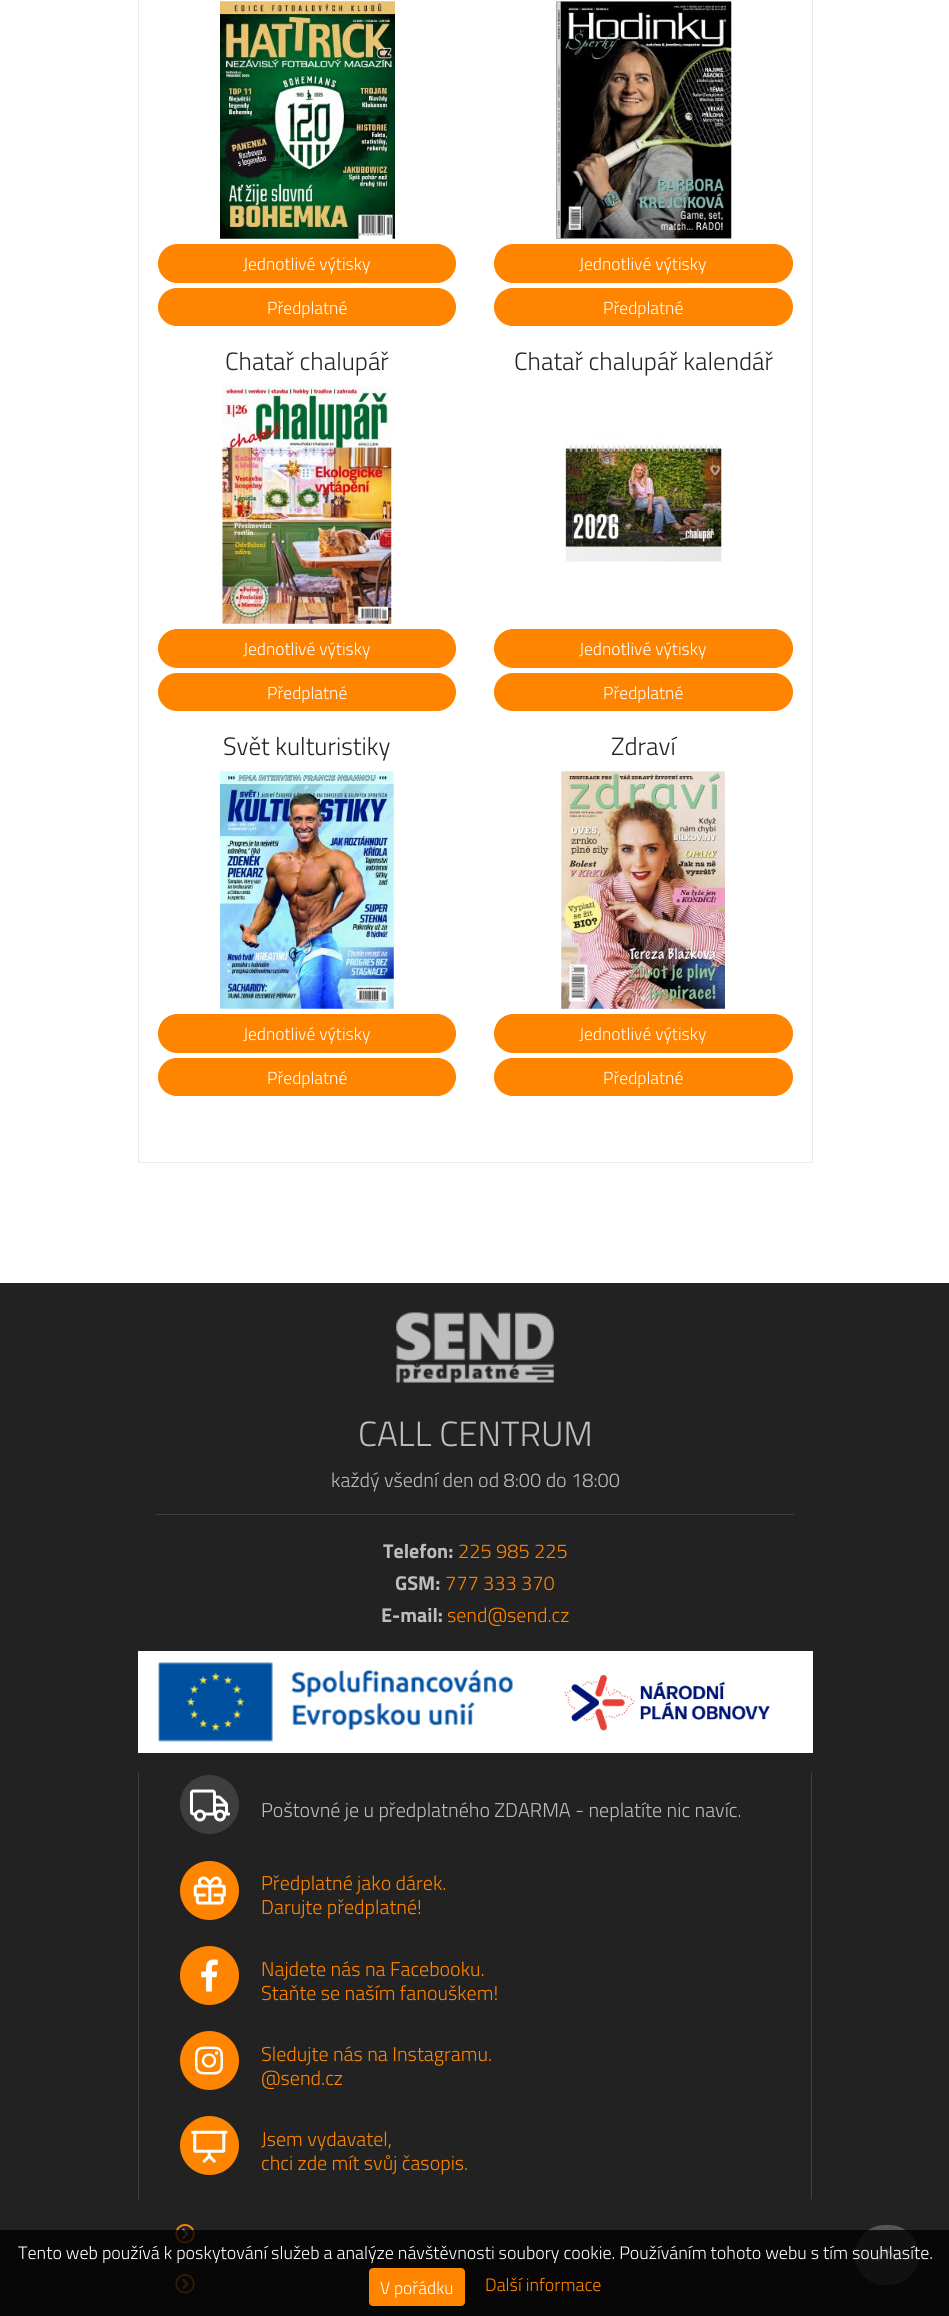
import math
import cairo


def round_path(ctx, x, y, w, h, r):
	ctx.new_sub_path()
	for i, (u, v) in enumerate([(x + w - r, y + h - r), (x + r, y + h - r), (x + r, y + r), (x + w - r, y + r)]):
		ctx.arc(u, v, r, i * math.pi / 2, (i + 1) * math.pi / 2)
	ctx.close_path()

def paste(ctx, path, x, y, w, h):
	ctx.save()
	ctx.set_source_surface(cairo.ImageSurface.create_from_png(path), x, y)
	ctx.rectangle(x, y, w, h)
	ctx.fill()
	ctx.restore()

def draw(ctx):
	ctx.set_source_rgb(1, 1, 1)
	ctx.paint()
	ctx.rectangle(138.5, -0.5, 674, 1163)
	ctx.set_source_rgb(0.918, 0.918, 0.918)
	ctx.set_line_width(1)
	ctx.stroke()
	paste(ctx, 'media/1.png', 220, 1, 175, 238)
	ctx.set_source_rgb(1, 0.518, 0)
	round_path(ctx, 158.5, 244.5, 297, 38, 19)
	ctx.fill_preserve()
	ctx.stroke()
	ctx.select_font_face('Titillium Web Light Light')
	ctx.set_font_size(17.5)
	ctx.set_source_rgb(1, 1, 1)
	ctx.move_to(243, 270)
	ctx.show_text('Jednotlivé výtisky')
	ctx.set_source_rgb(1, 0.518, 0)
	round_path(ctx, 158.5, 288.5, 297, 37, 18.5)
	ctx.fill_preserve()
	ctx.stroke()
	ctx.set_source_rgb(1, 1, 1)
	ctx.move_to(267, 314)
	ctx.show_text('Předplatné')
	paste(ctx, 'media/2.png', 556, 1, 176, 238)
	ctx.set_source_rgb(1, 0.518, 0)
	round_path(ctx, 494.5, 244.5, 298, 38, 19)
	ctx.fill_preserve()
	ctx.stroke()
	ctx.set_source_rgb(1, 1, 1)
	ctx.move_to(579, 270)
	ctx.show_text('Jednotlivé výtisky')
	ctx.set_source_rgb(1, 0.518, 0)
	round_path(ctx, 494.5, 288.5, 298, 37, 18.5)
	ctx.fill_preserve()
	ctx.stroke()
	ctx.set_source_rgb(1, 1, 1)
	ctx.move_to(603, 314)
	ctx.show_text('Předplatné')
	ctx.set_font_size(25)
	ctx.set_source_rgb(0.129, 0.145, 0.161)
	ctx.move_to(225, 370)
	ctx.show_text('Chatař chalupář')
	paste(ctx, 'media/3.png', 222, 386, 170, 238)
	ctx.set_source_rgb(1, 0.518, 0)
	round_path(ctx, 158.5, 629.5, 297, 38, 19)
	ctx.fill_preserve()
	ctx.stroke()
	ctx.set_font_size(17.5)
	ctx.set_source_rgb(1, 1, 1)
	ctx.move_to(243, 655)
	ctx.show_text('Jednotlivé výtisky')
	ctx.set_source_rgb(1, 0.518, 0)
	round_path(ctx, 158.5, 673.5, 297, 37, 18.5)
	ctx.fill_preserve()
	ctx.stroke()
	ctx.set_source_rgb(1, 1, 1)
	ctx.move_to(267, 699)
	ctx.show_text('Předplatné')
	ctx.set_font_size(25)
	ctx.set_source_rgb(0.129, 0.145, 0.161)
	ctx.move_to(514, 370)
	ctx.show_text('Chatař chalupář kalendář')
	paste(ctx, 'media/4.png', 565, 437, 157, 125)
	ctx.set_source_rgb(1, 0.518, 0)
	round_path(ctx, 494.5, 629.5, 298, 38, 19)
	ctx.fill_preserve()
	ctx.stroke()
	ctx.set_font_size(17.5)
	ctx.set_source_rgb(1, 1, 1)
	ctx.move_to(579, 655)
	ctx.show_text('Jednotlivé výtisky')
	ctx.set_source_rgb(1, 0.518, 0)
	round_path(ctx, 494.5, 673.5, 298, 37, 18.5)
	ctx.fill_preserve()
	ctx.stroke()
	ctx.set_source_rgb(1, 1, 1)
	ctx.move_to(603, 699)
	ctx.show_text('Předplatné')
	ctx.set_font_size(25)
	ctx.set_source_rgb(0.129, 0.145, 0.161)
	ctx.move_to(223, 755)
	ctx.show_text('Svět kulturistiky')
	paste(ctx, 'media/5.png', 220, 771, 174, 238)
	ctx.set_source_rgb(1, 0.518, 0)
	round_path(ctx, 158.5, 1014.5, 297, 38, 19)
	ctx.fill_preserve()
	ctx.stroke()
	ctx.set_font_size(17.5)
	ctx.set_source_rgb(1, 1, 1)
	ctx.move_to(243, 1040)
	ctx.show_text('Jednotlivé výtisky')
	ctx.set_source_rgb(1, 0.518, 0)
	round_path(ctx, 158.5, 1058.5, 297, 37, 18.5)
	ctx.fill_preserve()
	ctx.stroke()
	ctx.set_source_rgb(1, 1, 1)
	ctx.move_to(267, 1084)
	ctx.show_text('Předplatné')
	ctx.set_font_size(25)
	ctx.set_source_rgb(0.129, 0.145, 0.161)
	ctx.move_to(611, 755)
	ctx.show_text('Zdraví')
	paste(ctx, 'media/6.png', 561, 771, 164, 238)
	ctx.set_source_rgb(1, 0.518, 0)
	round_path(ctx, 494.5, 1014.5, 298, 38, 19)
	ctx.fill_preserve()
	ctx.stroke()
	ctx.set_font_size(17.5)
	ctx.set_source_rgb(1, 1, 1)
	ctx.move_to(579, 1040)
	ctx.show_text('Jednotlivé výtisky')
	ctx.set_source_rgb(1, 0.518, 0)
	round_path(ctx, 494.5, 1058.5, 298, 37, 18.5)
	ctx.fill_preserve()
	ctx.stroke()
	ctx.set_source_rgb(1, 1, 1)
	ctx.move_to(603, 1084)
	ctx.show_text('Předplatné')
	ctx.set_source_rgb(0.133, 0.133, 0.133)
	ctx.rectangle(0, 1283, 949, 1033)
	ctx.fill()
	paste(ctx, 'media/7.png', 396, 1312, 158, 71)
	ctx.set_font_size(35)
	ctx.set_source_rgb(0.741, 0.741, 0.741)
	ctx.move_to(358, 1446)
	ctx.show_text('CALL CENTRUM')
	ctx.set_font_size(20)
	ctx.move_to(331, 1487)
	ctx.show_text('každý všední den od 8:00 do 18:00')
	ctx.set_source_rgb(0.255, 0.255, 0.255)
	ctx.rectangle(156, 1514, 638, 1)
	ctx.fill()
	ctx.select_font_face('Titillium Web', cairo.FONT_SLANT_NORMAL, cairo.FONT_WEIGHT_BOLD)
	ctx.set_source_rgb(0.741, 0.741, 0.741)
	ctx.move_to(383, 1558)
	ctx.show_text('Telefon:')
	ctx.select_font_face('Titillium Web Light Light')
	ctx.set_source_rgb(1, 0.518, 0)
	ctx.move_to(458, 1558)
	ctx.show_text('225 985 225')
	ctx.select_font_face('Titillium Web', cairo.FONT_SLANT_NORMAL, cairo.FONT_WEIGHT_BOLD)
	ctx.set_source_rgb(0.741, 0.741, 0.741)
	ctx.move_to(395, 1590)
	ctx.show_text('GSM:')
	ctx.select_font_face('Titillium Web Light Light')
	ctx.set_source_rgb(1, 0.518, 0)
	ctx.move_to(445, 1590)
	ctx.show_text('777 333 370')
	ctx.select_font_face('Titillium Web', cairo.FONT_SLANT_NORMAL, cairo.FONT_WEIGHT_BOLD)
	ctx.set_source_rgb(0.741, 0.741, 0.741)
	ctx.move_to(381, 1622)
	ctx.show_text('E-mail:')
	ctx.select_font_face('Titillium Web Light Light')
	ctx.set_source_rgb(1, 0.518, 0)
	ctx.move_to(447, 1622)
	ctx.show_text('send@send.cz')
	ctx.set_source_rgb(1, 1, 1)
	ctx.rectangle(138, 1651, 675, 102)
	ctx.fill()
	paste(ctx, 'media/8.png', 158, 1662, 355, 80)
	paste(ctx, 'media/9.png', 564, 1675, 206, 56)
	ctx.set_source_rgb(0.255, 0.255, 0.255)
	ctx.rectangle(811, 1773, 1, 426)
	ctx.fill()
	ctx.rectangle(138, 1773, 1, 426)
	ctx.fill()
	ctx.set_source_rgb(0.243, 0.243, 0.243)
	ctx.arc(209.5, 1804.5, 29.5, 0, 2 * math.pi)
	ctx.fill()
	paste(ctx, 'media/10.png', 190, 1789, 40, 33)
	ctx.set_source_rgb(0.741, 0.741, 0.741)
	ctx.move_to(261, 1817)
	ctx.show_text('Poštovné je u předplatného ZDARMA - neplatíte nic navíc.')
	ctx.set_source_rgb(1, 0.518, 0)
	ctx.new_path()
	ctx.arc(209.5, 1890.5, 29.5, 0, 2 * math.pi)
	ctx.fill()
	paste(ctx, 'media/11.png', 193, 1876, 33, 29)
	ctx.move_to(261, 1890)
	ctx.show_text('Předplatné jako dárek.')
	ctx.move_to(261, 1914)
	ctx.show_text('Darujte předplatné!')
	ctx.new_path()
	ctx.arc(209.5, 1975.5, 29.5, 0, 2 * math.pi)
	ctx.fill()
	paste(ctx, 'media/12.png', 201, 1959, 17, 33)
	ctx.move_to(261, 1976)
	ctx.show_text('Najdete nás na Facebooku.')
	ctx.move_to(261, 2000)
	ctx.show_text('Staňte se naším fanouškem!')
	ctx.new_path()
	ctx.arc(209.5, 2060.5, 29.5, 0, 2 * math.pi)
	ctx.fill()
	paste(ctx, 'media/13.png', 195, 2046, 28, 29)
	ctx.move_to(261, 2061)
	ctx.show_text('Sledujte nás na Instagramu.')
	ctx.move_to(261, 2085)
	ctx.show_text('@send.cz')
	ctx.new_path()
	ctx.arc(209.5, 2145.5, 29.5, 0, 2 * math.pi)
	ctx.fill()
	paste(ctx, 'media/14.png', 191, 2130, 37, 33)
	ctx.move_to(261, 2146)
	ctx.show_text('Jsem vydavatel,')
	ctx.move_to(261, 2170)
	ctx.show_text('chci zde mít svůj časopis.')
	paste(ctx, 'media/15.png', 175, 2224, 20, 20)
	paste(ctx, 'media/15.png', 175, 2274, 20, 20)
	ctx.set_source_rgb(0.333, 0.333, 0.333)
	round_path(ctx, 855, 2225, 64, 60, 30)
	ctx.fill()
	paste(ctx, 'media/16.png', 876, 2248, 22, 13)
	ctx.set_source_rgba(0, 0, 0, 0.8)
	ctx.rectangle(0, 2230, 949, 86)
	ctx.fill()
	ctx.set_font_size(18)
	ctx.set_source_rgb(1, 1, 1)
	ctx.move_to(18, 2259)
	ctx.show_text('Tento web používá k poskytování služeb a analýze návštěvnosti soubory cookie. Používáním tohoto webu s tím souhlasíte.')
	ctx.set_source_rgb(1, 0.518, 0)
	round_path(ctx, 369.5, 2268.5, 95, 37, 3.5)
	ctx.fill_preserve()
	ctx.stroke()
	ctx.set_font_size(17.5)
	ctx.set_source_rgb(1, 1, 1)
	ctx.move_to(380, 2294)
	ctx.show_text('V pořádku')
	ctx.set_font_size(18)
	ctx.set_source_rgb(1, 0.518, 0)
	ctx.move_to(485, 2291)
	ctx.show_text('Další informace')


surface = cairo.ImageSurface(cairo.FORMAT_RGB24, 949, 2316)
ctx = cairo.Context(surface)
options = cairo.FontOptions()
options.set_hint_metrics(cairo.HINT_METRICS_OFF)
options.set_hint_style(cairo.HINT_STYLE_NONE)
ctx.set_font_options(options)
ctx.set_miter_limit(4)
draw(ctx)
surface.write_to_png('image.png')
